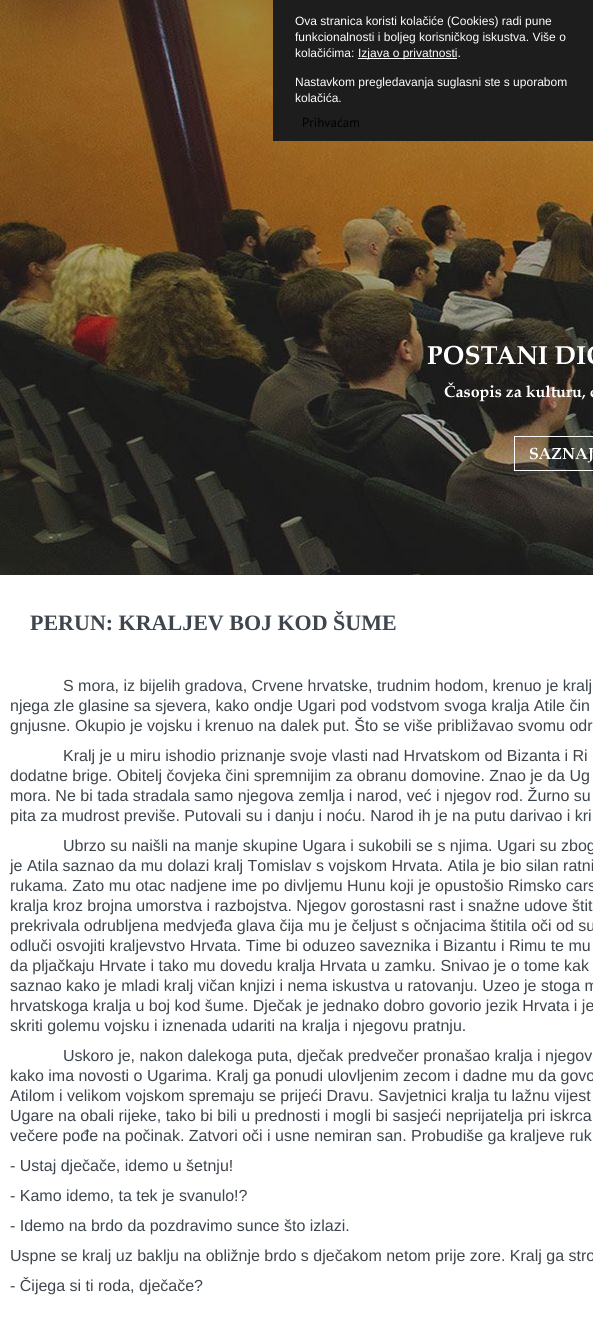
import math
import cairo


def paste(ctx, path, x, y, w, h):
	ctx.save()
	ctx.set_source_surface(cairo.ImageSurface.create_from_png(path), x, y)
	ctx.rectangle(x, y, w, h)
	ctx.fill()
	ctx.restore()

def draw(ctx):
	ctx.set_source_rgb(1, 1, 1)
	ctx.paint()
	paste(ctx, 'media/1.png', 0, 0, 593, 575)
	ctx.set_source_rgb(0.114, 0.114, 0.114)
	ctx.rectangle(273, 0, 320, 141)
	ctx.fill()
	ctx.select_font_face('Liberation Sans')
	ctx.set_font_size(12)
	ctx.set_source_rgb(1, 1, 1)
	for x, y, s in [
		(295, 25, 'Ova stranica koristi kolačiće (Cookies) radi pune'),
		(295, 41, 'funkcionalnosti i boljeg korisničkog iskustva. Više o'),
		(295, 57, 'kolačićima:'),
	]:
		ctx.move_to(x, y)
		ctx.show_text(s)
	ctx.rectangle(358, 58, 99, 1)
	ctx.fill()
	for x, y, s in [
		(358, 57, 'Izjava o privatnosti.'),
		(295, 86, 'Nastavkom pregledavanja suglasni ste s uporabom'),
		(295, 102, 'kolačića.'),
	]:
		ctx.move_to(x, y)
		ctx.show_text(s)
	ctx.select_font_face('PT Sans')
	ctx.set_font_size(13)
	ctx.set_source_rgb(0, 0, 0)
	ctx.move_to(302, 127)
	ctx.show_text('Prihvaćam')
	paste(ctx, 'media/2.png', 427, 345, 166, 126)
	ctx.select_font_face('Liberation Serif', cairo.FONT_SLANT_NORMAL, cairo.FONT_WEIGHT_BOLD)
	ctx.set_font_size(22)
	ctx.set_source_rgb(0.243, 0.271, 0.298)
	ctx.move_to(30, 630)
	ctx.show_text('PERUN: KRALJEV BOJ KOD ŠUME')
	ctx.select_font_face('Liberation Sans')
	ctx.set_font_size(16)
	for x, y, s in [
		(63, 691, 'S mora, iz bijelih gradova, Crvene hrvatske, trudnim hodom, krenuo je kralj'),
		(10, 711, 'njega zle glasine sa sjevera, kako ondje Ugari pod vodstvom svoga kralja Atile čin'),
		(10, 731, 'gnjusne. Okupio je vojsku i krenuo na dalek put. Što se više približavao svomu odr'),
		(63, 761, 'Kralj je u miru ishodio priznanje svoje vlasti nad Hrvatskom od Bizanta i Ri'),
		(10, 781, 'dodatne brige. Obitelj čovjeka čini spremnijim za obranu domovine. Znao je da Ug'),
		(10, 801, 'mora. Ne bi tada stradala samo njegova zemlja i narod, već i njegov rod. Žurno su'),
		(10, 821, 'pita za mudrost previše. Putovali su i danju i noću. Narod ih je na putu darivao i kri'),
		(63, 851, 'Ubrzo su naišli na manje skupine Ugara i sukobili se s njima. Ugari su zbog'),
		(10, 871, 'je Atila saznao da mu dolazi kralj Tomislav s vojskom Hrvata. Atila je bio silan ratni'),
		(10, 891, 'rukama. Zato mu otac nadjene ime po divljemu Hunu koji je opustošio Rimsko cars'),
		(10, 911, 'kralja kroz brojna umorstva i razbojstva. Njegov gorostasni rast i snažne udove štit'),
		(10, 931, 'prekrivala odrubljena medvjeđa glava čija mu je čeljust s očnjacima štitila oči od su'),
		(10, 951, 'odluči osvojiti kraljevstvo Hrvata. Time bi oduzeo saveznika i Bizantu i Rimu te mu'),
		(10, 971, 'da pljačkaju Hrvate i tako mu dovedu kralja Hrvata u zamku. Snivao je o tome kak'),
		(10, 991, 'saznao kako je mladi kralj vičan knjizi i nema iskustva u ratovanju. Uzeo je stoga m'),
		(10, 1011, 'hrvatskoga kralja u boj kod šume. Dječak je jednako dobro govorio jezik Hrvata i je'),
		(10, 1031, 'skriti golemu vojsku i iznenada udariti na kralja i njegovu pratnju.'),
		(63, 1061, 'Uskoro je, nakon dalekoga puta, dječak predvečer pronašao kralja i njegov'),
		(10, 1081, 'kako ima novosti o Ugarima. Kralj ga ponudi ulovljenim zecom i dadne mu da govo'),
		(10, 1101, 'Atilom i velikom vojskom spremaju se prijeći Dravu. Savjetnici kralja tu lažnu vijest'),
		(10, 1121, 'Ugare na obali rijeke, tako bi bili u prednosti i mogli bi sasjeći neprijatelja pri iskrca'),
		(10, 1141, 'večere pođe na počinak. Zatvori oči i usne nemiran san. Probudiše ga kraljeve ruk'),
		(10, 1171, '- Ustaj dječače, idemo u šetnju!'),
		(10, 1201, '- Kamo idemo, ta tek je svanulo!?'),
		(10, 1231, '- Idemo na brdo da pozdravimo sunce što izlazi.'),
		(10, 1261, 'Uspne se kralj uz baklju na obližnje brdo s dječakom netom prije zore. Kralj ga stro'),
		(10, 1291, '- Čijega si ti roda, dječače?'),
	]:
		ctx.move_to(x, y)
		ctx.show_text(s)


surface = cairo.ImageSurface(cairo.FORMAT_RGB24, 593, 1317)
ctx = cairo.Context(surface)
options = cairo.FontOptions()
options.set_hint_metrics(cairo.HINT_METRICS_OFF)
options.set_hint_style(cairo.HINT_STYLE_NONE)
ctx.set_font_options(options)
ctx.set_miter_limit(4)
draw(ctx)
surface.write_to_png('image.png')
